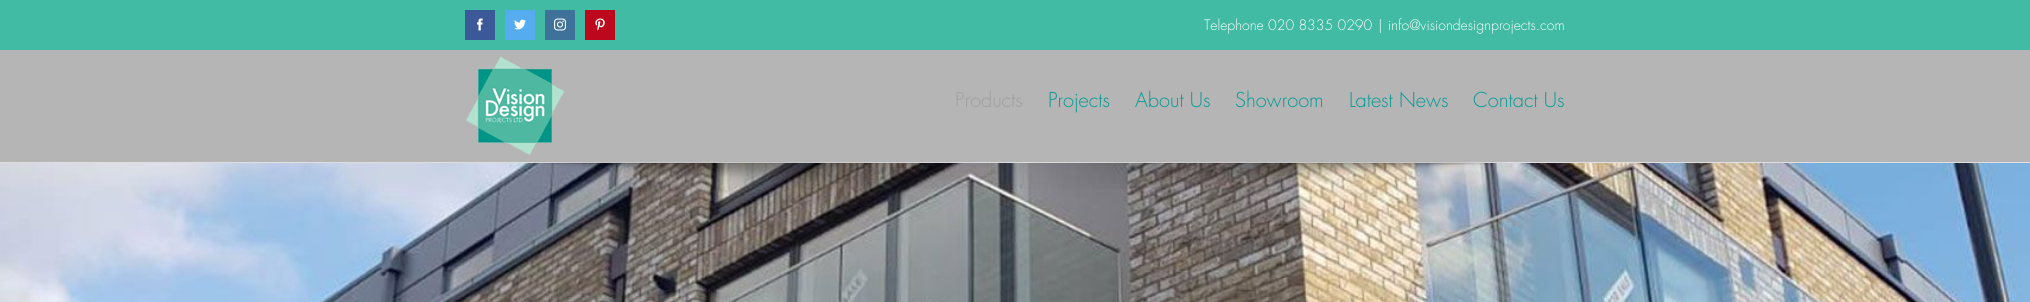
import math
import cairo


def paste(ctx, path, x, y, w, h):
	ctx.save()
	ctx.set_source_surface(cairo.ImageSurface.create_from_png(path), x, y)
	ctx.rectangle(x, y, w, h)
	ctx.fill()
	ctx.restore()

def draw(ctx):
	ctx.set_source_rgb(0.878, 0.871, 0.871)
	ctx.paint()
	ctx.set_source_rgb(0.255, 0.733, 0.639)
	ctx.rectangle(0, 0, 2030, 50)
	ctx.fill()
	ctx.set_source_rgb(0.71, 0.71, 0.71)
	ctx.rectangle(0, 50, 2030, 112)
	ctx.fill()
	ctx.set_source_rgb(0.231, 0.349, 0.596)
	ctx.rectangle(465, 10, 30, 30)
	ctx.fill()
	paste(ctx, 'media/1.png', 477, 18, 6, 13)
	ctx.set_source_rgb(0.333, 0.675, 0.933)
	ctx.rectangle(505, 10, 30, 30)
	ctx.fill()
	paste(ctx, 'media/2.png', 514, 19, 12, 11)
	ctx.set_source_rgb(0.247, 0.447, 0.608)
	ctx.rectangle(545, 10, 30, 30)
	ctx.fill()
	paste(ctx, 'media/3.png', 554, 18, 12, 13)
	ctx.set_source_rgb(0.741, 0.031, 0.11)
	ctx.rectangle(585, 10, 30, 30)
	ctx.fill()
	paste(ctx, 'media/4.png', 595, 18, 10, 13)
	ctx.select_font_face('Futura Light')
	ctx.set_font_size(14)
	ctx.set_source_rgb(1, 1, 1)
	for x, y, s in [
		(1204, 30, 'Telephone 020 8335 0290'),
		(1378, 30, '|'),
		(1388, 30, 'info@visiondesignprojects.com'),
	]:
		ctx.move_to(x, y)
		ctx.show_text(s)
	paste(ctx, 'media/5.png', 466, 56, 98, 99)
	ctx.set_font_size(20)
	ctx.set_source_rgb(0.62, 0.62, 0.62)
	ctx.move_to(955, 107)
	ctx.show_text('Products')
	ctx.set_source_rgb(0.008, 0.608, 0.588)
	for x, y, s in [
		(1048, 107, 'Projects'),
		(1135, 107, 'About Us'),
		(1235, 107, 'Showroom'),
		(1349, 107, 'Latest News'),
		(1473, 107, 'Contact Us'),
	]:
		ctx.move_to(x, y)
		ctx.show_text(s)
	paste(ctx, 'media/7.png', 0, 163, 2030, 139)
	paste(ctx, 'media/6.png', 533, 162, 971, 27)


surface = cairo.ImageSurface(cairo.FORMAT_RGB24, 2030, 302)
ctx = cairo.Context(surface)
options = cairo.FontOptions()
options.set_hint_metrics(cairo.HINT_METRICS_OFF)
options.set_hint_style(cairo.HINT_STYLE_NONE)
ctx.set_font_options(options)
ctx.set_miter_limit(4)
draw(ctx)
surface.write_to_png('image.png')
